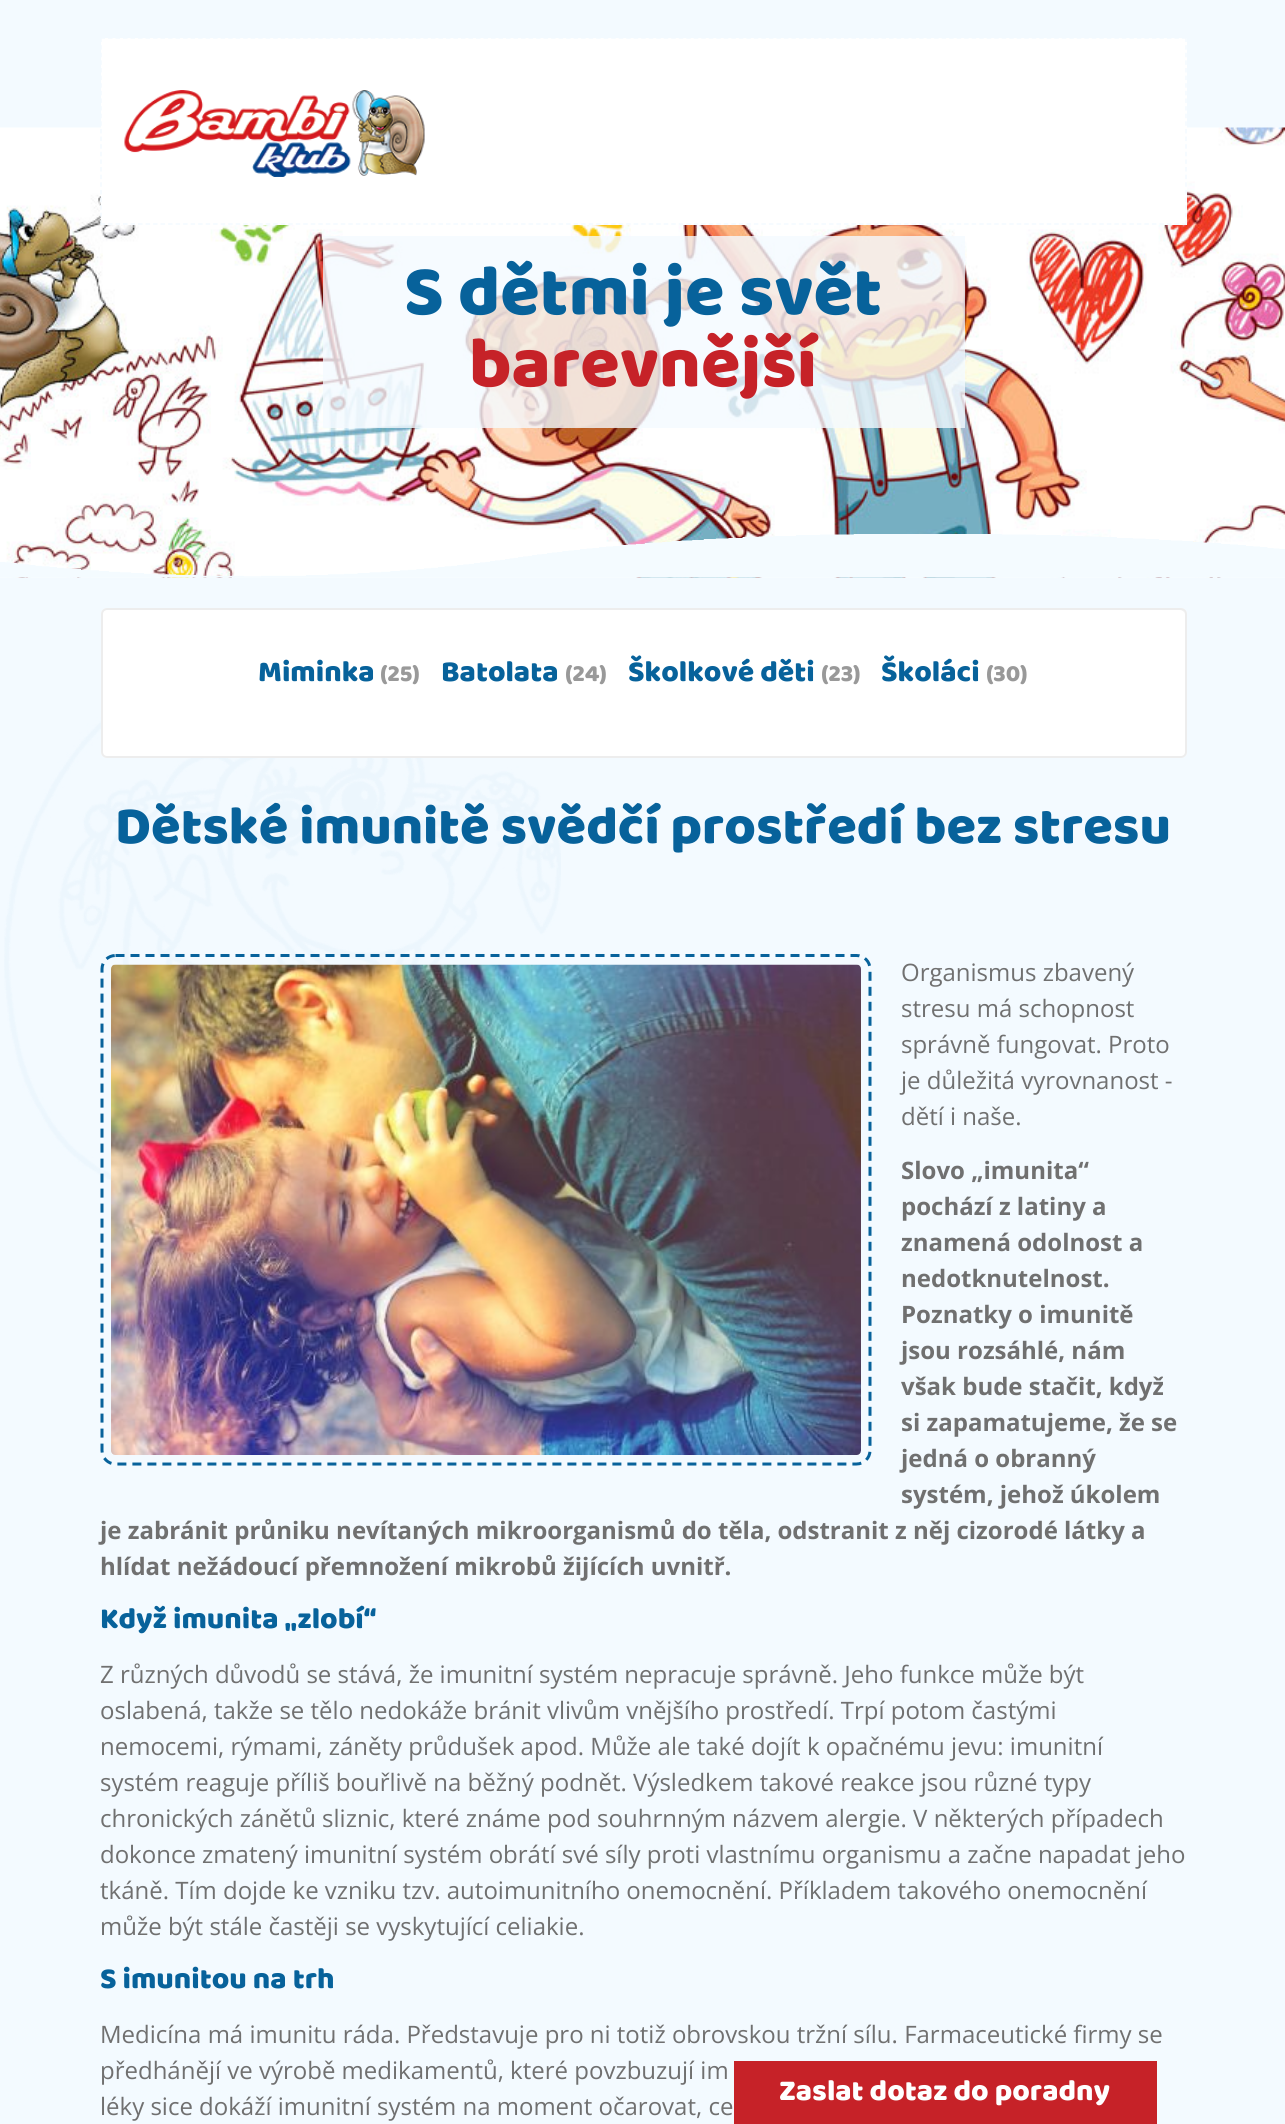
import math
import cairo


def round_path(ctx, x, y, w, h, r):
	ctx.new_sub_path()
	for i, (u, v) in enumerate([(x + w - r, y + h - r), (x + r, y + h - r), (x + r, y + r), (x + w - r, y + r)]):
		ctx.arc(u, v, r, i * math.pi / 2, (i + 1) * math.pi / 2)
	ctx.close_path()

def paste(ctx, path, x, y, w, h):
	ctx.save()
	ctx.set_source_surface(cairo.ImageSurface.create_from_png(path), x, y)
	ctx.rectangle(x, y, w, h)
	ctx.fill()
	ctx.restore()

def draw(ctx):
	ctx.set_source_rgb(0.953, 0.98, 1)
	ctx.paint()
	paste(ctx, 'media/1.png', 0, 127, 1285, 451)
	ctx.set_source_rgb(1, 1, 1)
	ctx.rectangle(101, 38, 1086, 187)
	ctx.fill()
	ctx.new_path()
	ctx.move_to(100.5, 38)
	ctx.line_to(1186.5, 38)
	ctx.set_source_rgb(0.953, 0.98, 1)
	ctx.set_line_width(1.5)
	ctx.set_dash([4.5, 3.01])
	ctx.stroke()
	ctx.new_path()
	ctx.move_to(1186, 37.5)
	ctx.line_to(1186, 225)
	ctx.set_dash([4.5, 3.12])
	ctx.stroke()
	ctx.new_path()
	ctx.move_to(100.5, 224)
	ctx.line_to(1186.5, 224)
	ctx.set_dash([4.5, 3.01])
	ctx.stroke()
	ctx.new_path()
	ctx.move_to(101, 37.5)
	ctx.line_to(101, 225)
	ctx.set_dash([4.5, 3.12])
	ctx.stroke()
	paste(ctx, 'media/2.png', 124, 90, 301, 87)
	ctx.set_source_rgba(0.953, 0.98, 1, 0.8)
	ctx.rectangle(323, 236, 642, 192)
	ctx.fill()
	ctx.select_font_face('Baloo')
	ctx.set_font_size(72)
	ctx.set_source_rgb(0.031, 0.384, 0.608)
	ctx.move_to(404, 314)
	ctx.show_text('S dětmi je svět')
	ctx.set_source_rgb(0.776, 0.133, 0.157)
	ctx.move_to(469, 386)
	ctx.show_text('barevnější')
	paste(ctx, 'media/3.png', 4, 711, 557, 472)
	paste(ctx, 'media/4.png', 0, 534, 1285, 44)
	ctx.set_source_rgb(1, 1, 1)
	round_path(ctx, 101, 608, 1086, 150, 6)
	ctx.fill()
	ctx.set_source_rgb(0.949, 0.949, 0.949)
	ctx.new_path()
	ctx.move_to(106, 610)
	ctx.line_to(1180, 610)
	ctx.curve_to(1183, 610, 1185, 613, 1185, 615)
	ctx.curve_to(1185, 612, 1183, 609, 1180, 609)
	ctx.line_to(107, 609)
	ctx.curve_to(104, 609, 102, 612, 102, 615)
	ctx.curve_to(102, 613, 104, 610, 106, 610)
	ctx.close_path()
	ctx.fill()
	round_path(ctx, 102, 609, 1084, 148, 5)
	ctx.set_source_rgb(0.929, 0.929, 0.929)
	ctx.set_line_width(2)
	ctx.set_dash([])
	ctx.stroke()
	ctx.set_font_size(30)
	ctx.set_source_rgb(0.031, 0.384, 0.608)
	ctx.move_to(258, 681)
	ctx.show_text('Miminka')
	ctx.set_font_size(24)
	ctx.set_source_rgb(0.6, 0.6, 0.6)
	ctx.move_to(380, 681)
	ctx.show_text('(25)')
	ctx.set_font_size(30)
	ctx.set_source_rgb(0.031, 0.384, 0.608)
	ctx.move_to(441, 681)
	ctx.show_text('Batolata')
	ctx.set_font_size(24)
	ctx.set_source_rgb(0.6, 0.6, 0.6)
	ctx.move_to(565, 681)
	ctx.show_text('(24)')
	ctx.set_font_size(30)
	ctx.set_source_rgb(0.031, 0.384, 0.608)
	ctx.move_to(628, 681)
	ctx.show_text('Školkové děti')
	ctx.set_font_size(24)
	ctx.set_source_rgb(0.6, 0.6, 0.6)
	ctx.move_to(821, 681)
	ctx.show_text('(23)')
	ctx.set_font_size(30)
	ctx.set_source_rgb(0.031, 0.384, 0.608)
	ctx.move_to(881, 681)
	ctx.show_text('Školáci')
	ctx.set_font_size(24)
	ctx.set_source_rgb(0.6, 0.6, 0.6)
	ctx.move_to(986, 681)
	ctx.show_text('(30)')
	ctx.set_font_size(54)
	ctx.set_source_rgb(0.031, 0.384, 0.608)
	ctx.move_to(115, 843)
	ctx.show_text('Dětské imunitě svědčí prostředí bez stresu')
	ctx.new_path()
	ctx.move_to(115.5, 955.5)
	ctx.line_to(856.5, 955.5)
	ctx.curve_to(864, 955.5, 870, 961.5, 870, 969)
	ctx.line_to(870, 1450.5)
	ctx.curve_to(870, 1458, 864, 1464, 856.5, 1464)
	ctx.line_to(115.5, 1464)
	ctx.curve_to(108, 1464, 102, 1458, 102, 1450.5)
	ctx.line_to(102, 969)
	ctx.curve_to(102, 961.5, 108, 955.5, 115.5, 955.5)
	ctx.close_path()
	ctx.set_line_width(3)
	ctx.set_dash([9, 6])
	ctx.stroke()
	paste(ctx, 'media/5.png', 111, 964, 750, 491)
	ctx.select_font_face('Open Sans')
	ctx.set_font_size(24)
	ctx.set_source_rgb(0.439, 0.439, 0.439)
	for x, y, s in [
		(901, 981, 'Organismus zbavený'),
		(901, 1017, 'stresu má schopnost'),
		(901, 1053, 'správně fungovat. Proto'),
		(901, 1089, 'je důležitá vyrovnanost -'),
		(901, 1125, 'dětí i naše.'),
	]:
		ctx.move_to(x, y)
		ctx.show_text(s)
	ctx.select_font_face('Open Sans', cairo.FONT_SLANT_NORMAL, cairo.FONT_WEIGHT_BOLD)
	for x, y, s in [
		(901, 1179, 'Slovo „imunita“'),
		(901, 1215, 'pochází z latiny a'),
		(901, 1251, 'znamená odolnost a'),
		(901, 1287, 'nedotknutelnost.'),
		(901, 1323, 'Poznatky o imunitě'),
		(901, 1359, 'jsou rozsáhlé, nám'),
		(901, 1395, 'však bude stačit, když'),
		(901, 1431, 'si zapamatujeme, že se'),
		(901, 1467, 'jedná o obranný'),
		(901, 1503, 'systém, jehož úkolem'),
		(100, 1539, 'je zabránit průniku nevítaných mikroorganismů do těla, odstranit z něj cizorodé látky a'),
		(100, 1575, 'hlídat nežádoucí přemnožení mikrobů žijících uvnitř.'),
	]:
		ctx.move_to(x, y)
		ctx.show_text(s)
	ctx.select_font_face('Baloo')
	ctx.set_font_size(30)
	ctx.set_source_rgb(0.031, 0.384, 0.608)
	ctx.move_to(100, 1628)
	ctx.show_text('Když imunita „zlobí“')
	ctx.select_font_face('Open Sans')
	ctx.set_font_size(24)
	ctx.set_source_rgb(0.439, 0.439, 0.439)
	for x, y, s in [
		(100, 1683, 'Z různých důvodů se stává, že imunitní systém nepracuje správně. Jeho funkce může být'),
		(100, 1719, 'oslabená, takže se tělo nedokáže bránit vlivům vnějšího prostředí. Trpí potom častými'),
		(100, 1755, 'nemocemi, rýmami, záněty průdušek apod. Může ale také dojít k opačnému jevu: imunitní'),
		(100, 1791, 'systém reaguje příliš bouřlivě na běžný podnět. Výsledkem takové reakce jsou různé typy'),
		(100, 1827, 'chronických zánětů sliznic, které známe pod souhrnným názvem alergie. V některých případech'),
		(100, 1863, 'dokonce zmatený imunitní systém obrátí své síly proti vlastnímu organismu a začne napadat jeho'),
		(100, 1899, 'tkáně. Tím dojde ke vzniku tzv. autoimunitního onemocnění. Příkladem takového onemocnění'),
		(100, 1935, 'může být stále častěji se vyskytující celiakie.'),
	]:
		ctx.move_to(x, y)
		ctx.show_text(s)
	ctx.select_font_face('Baloo')
	ctx.set_font_size(30)
	ctx.set_source_rgb(0.031, 0.384, 0.608)
	ctx.move_to(100, 1988)
	ctx.show_text('S imunitou na trh')
	ctx.select_font_face('Open Sans')
	ctx.set_font_size(24)
	ctx.set_source_rgb(0.439, 0.439, 0.439)
	for x, y, s in [
		(100, 2043, 'Medicína má imunitu ráda. Představuje pro ni totiž obrovskou tržní sílu. Farmaceutické firmy se'),
		(100, 2079, 'předhánějí ve výrobě medikamentů, které povzbuzují im'),
		(100, 2115, 'léky sice dokáží imunitní systém na moment očarovat, ce'),
	]:
		ctx.move_to(x, y)
		ctx.show_text(s)
	ctx.set_source_rgb(0.776, 0.133, 0.157)
	ctx.rectangle(734, 2061, 423, 63)
	ctx.fill()
	ctx.select_font_face('Baloo')
	ctx.set_font_size(30)
	ctx.set_source_rgb(1, 1, 1)
	ctx.move_to(779, 2100)
	ctx.show_text('Zaslat dotaz do poradny')


surface = cairo.ImageSurface(cairo.FORMAT_RGB24, 1285, 2124)
ctx = cairo.Context(surface)
options = cairo.FontOptions()
options.set_hint_metrics(cairo.HINT_METRICS_OFF)
options.set_hint_style(cairo.HINT_STYLE_NONE)
ctx.set_font_options(options)
ctx.set_miter_limit(4)
draw(ctx)
surface.write_to_png('image.png')
